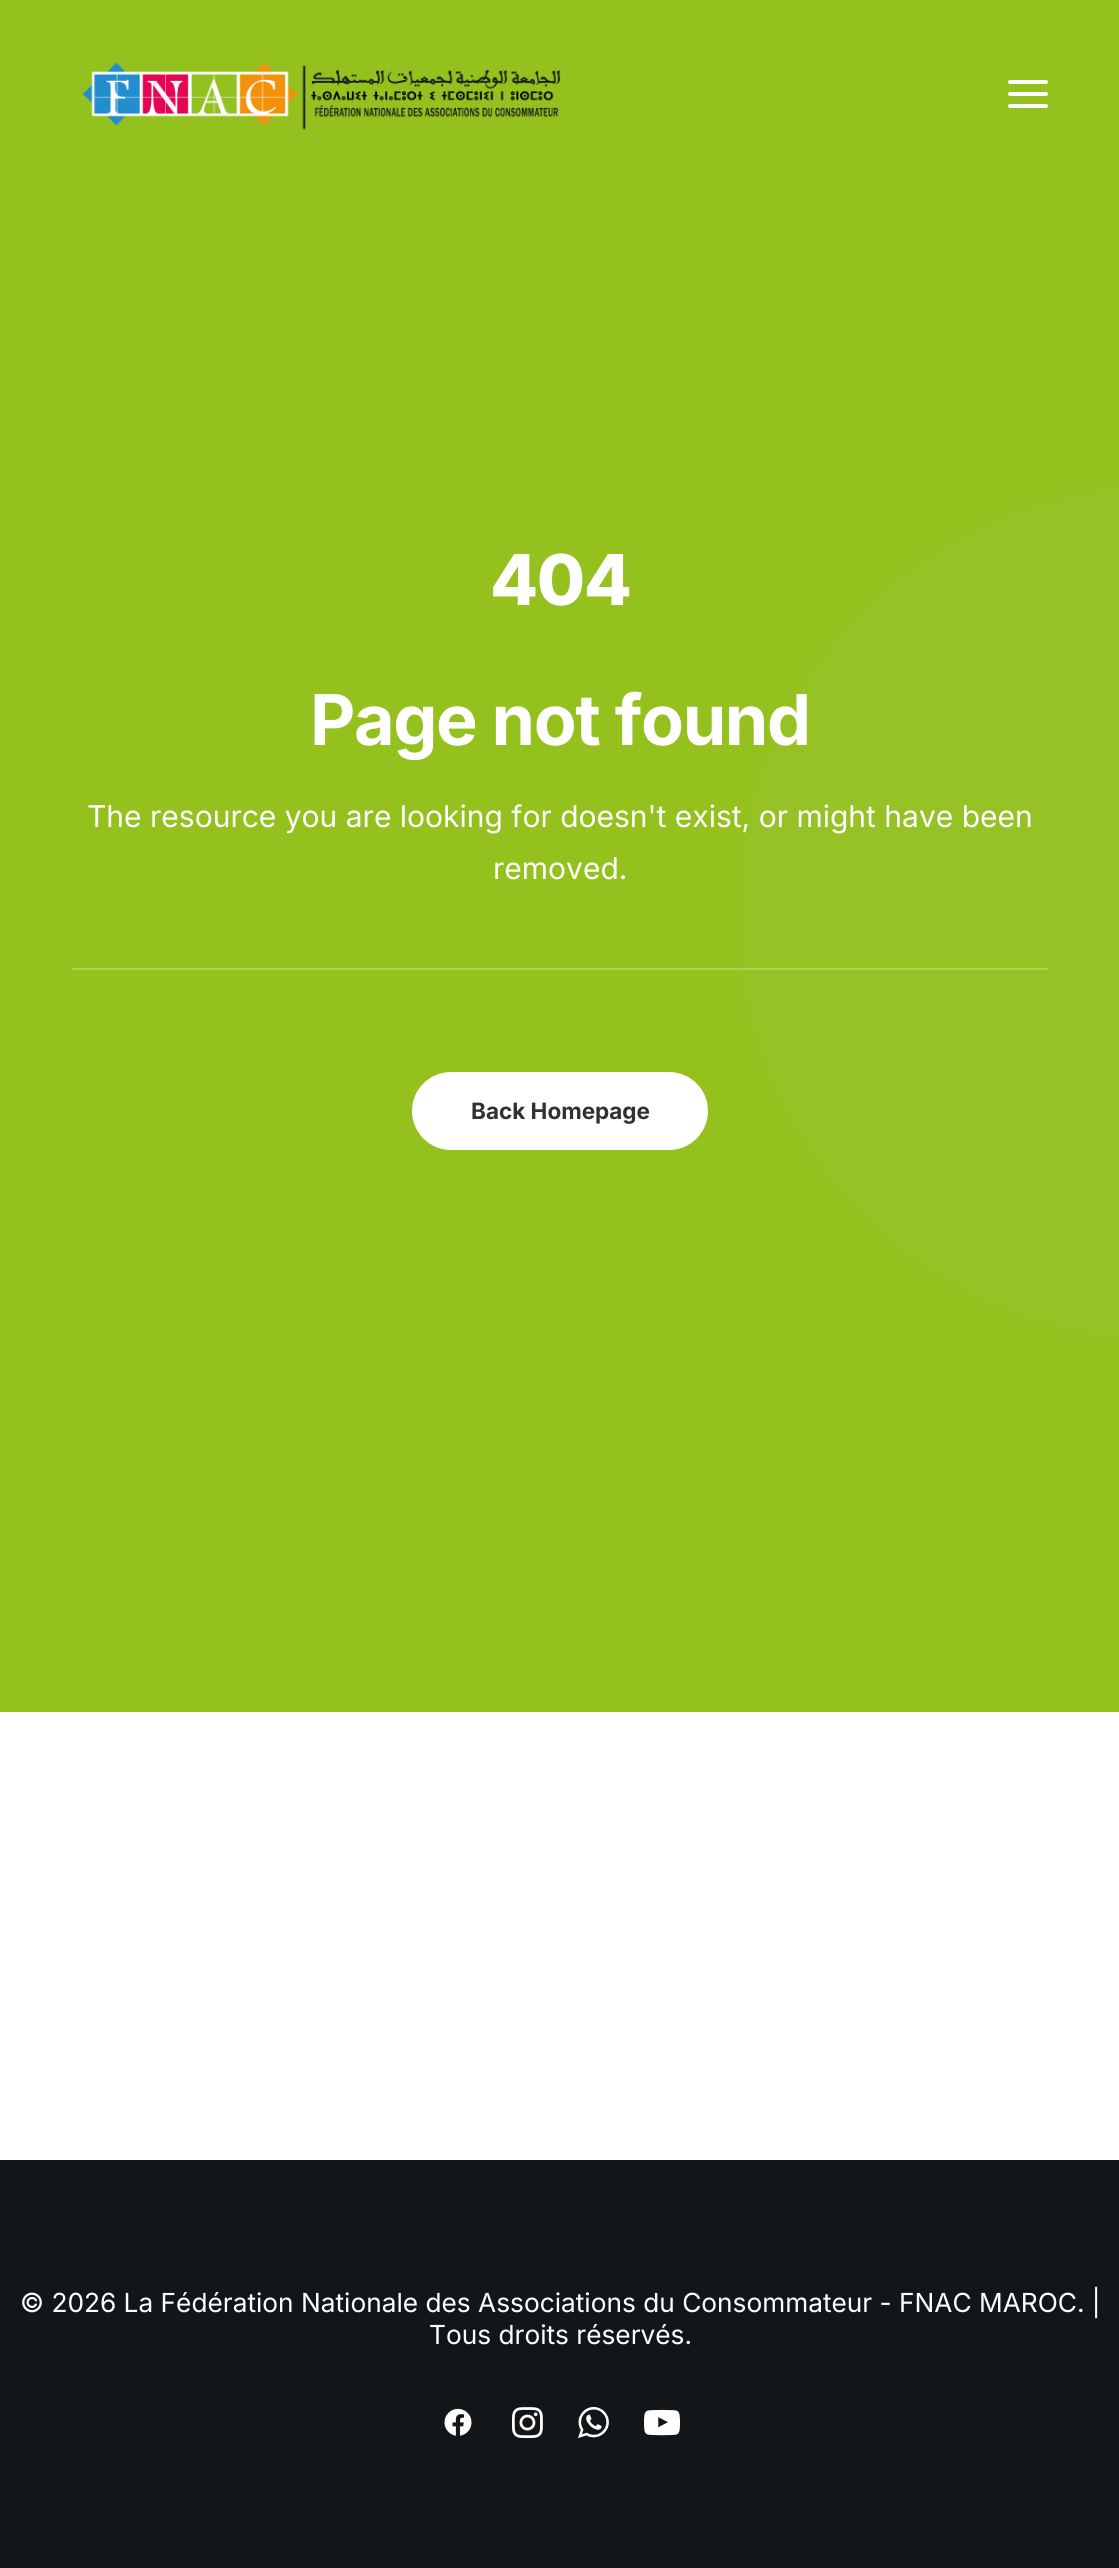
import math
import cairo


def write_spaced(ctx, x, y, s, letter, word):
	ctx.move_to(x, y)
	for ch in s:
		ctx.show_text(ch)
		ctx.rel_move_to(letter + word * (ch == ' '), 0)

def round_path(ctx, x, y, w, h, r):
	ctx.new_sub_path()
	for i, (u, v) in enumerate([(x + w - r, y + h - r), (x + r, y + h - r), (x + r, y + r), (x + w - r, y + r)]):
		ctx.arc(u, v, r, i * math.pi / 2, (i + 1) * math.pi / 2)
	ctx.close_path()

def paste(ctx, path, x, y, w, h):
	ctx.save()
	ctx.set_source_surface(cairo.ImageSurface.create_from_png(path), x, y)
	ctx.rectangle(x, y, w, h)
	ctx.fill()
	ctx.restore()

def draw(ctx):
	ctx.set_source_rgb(0.078, 0.086, 0.094)
	ctx.paint()
	ctx.set_source_rgb(0.584, 0.757, 0.122)
	ctx.rectangle(0, 0, 1119, 1712)
	ctx.fill()
	paste(ctx, 'media/1.png', 82, 62, 479, 68)
	ctx.set_source_rgb(1, 1, 1)
	round_path(ctx, 1008, 92, 40, 4, 2)
	ctx.fill()
	round_path(ctx, 1008, 80, 40, 4, 2)
	ctx.fill()
	round_path(ctx, 1008, 104, 40, 4, 2)
	ctx.fill()
	paste(ctx, 'media/2.png', 738, 488, 381, 850)
	ctx.select_font_face('Inter ExtraBold')
	ctx.set_font_size(70)
	write_spaced(ctx, 490, 605, '404', -1.4, 0)
	ctx.select_font_face('Inter', cairo.FONT_SLANT_NORMAL, cairo.FONT_WEIGHT_BOLD)
	write_spaced(ctx, 310, 745, 'Page not found', -1.4, 0)
	ctx.select_font_face('Inter')
	ctx.set_font_size(30)
	ctx.move_to(87, 827)
	ctx.show_text('The resource you are looking for doesn\'t exist, or might have been')
	ctx.move_to(493, 879)
	ctx.show_text('removed.')
	ctx.set_source_rgba(1, 1, 1, 0.25)
	ctx.rectangle(72, 968, 976, 2)
	ctx.fill()
	ctx.set_source_rgb(1, 1, 1)
	round_path(ctx, 413, 1073, 294, 76, 38)
	ctx.fill_preserve()
	ctx.stroke()
	ctx.select_font_face('Inter', cairo.FONT_SLANT_NORMAL, cairo.FONT_WEIGHT_BOLD)
	ctx.set_font_size(22.5)
	ctx.set_source_rgb(0.188, 0.192, 0.2)
	ctx.move_to(471, 1119)
	ctx.show_text('Back Homepage')
	ctx.set_source_rgb(1, 1, 1)
	ctx.rectangle(0, 1712, 1119, 448)
	ctx.fill()
	ctx.select_font_face('Inter')
	ctx.set_font_size(26.25)
	ctx.move_to(20, 2312)
	ctx.show_text('© 2026 La Fédération Nationale des Associations du Consommateur - FNAC MAROC. |')
	ctx.move_to(429, 2344)
	ctx.show_text('Tous droits réservés.')
	paste(ctx, 'media/3.png', 444, 2408, 28, 28)
	paste(ctx, 'media/4.png', 512, 2407, 31, 31)
	paste(ctx, 'media/5.png', 578, 2407, 31, 32)
	paste(ctx, 'media/6.png', 644, 2409, 36, 27)


surface = cairo.ImageSurface(cairo.FORMAT_RGB24, 1119, 2568)
ctx = cairo.Context(surface)
options = cairo.FontOptions()
options.set_hint_metrics(cairo.HINT_METRICS_OFF)
options.set_hint_style(cairo.HINT_STYLE_NONE)
ctx.set_font_options(options)
ctx.set_miter_limit(4)
draw(ctx)
surface.write_to_png('image.png')
